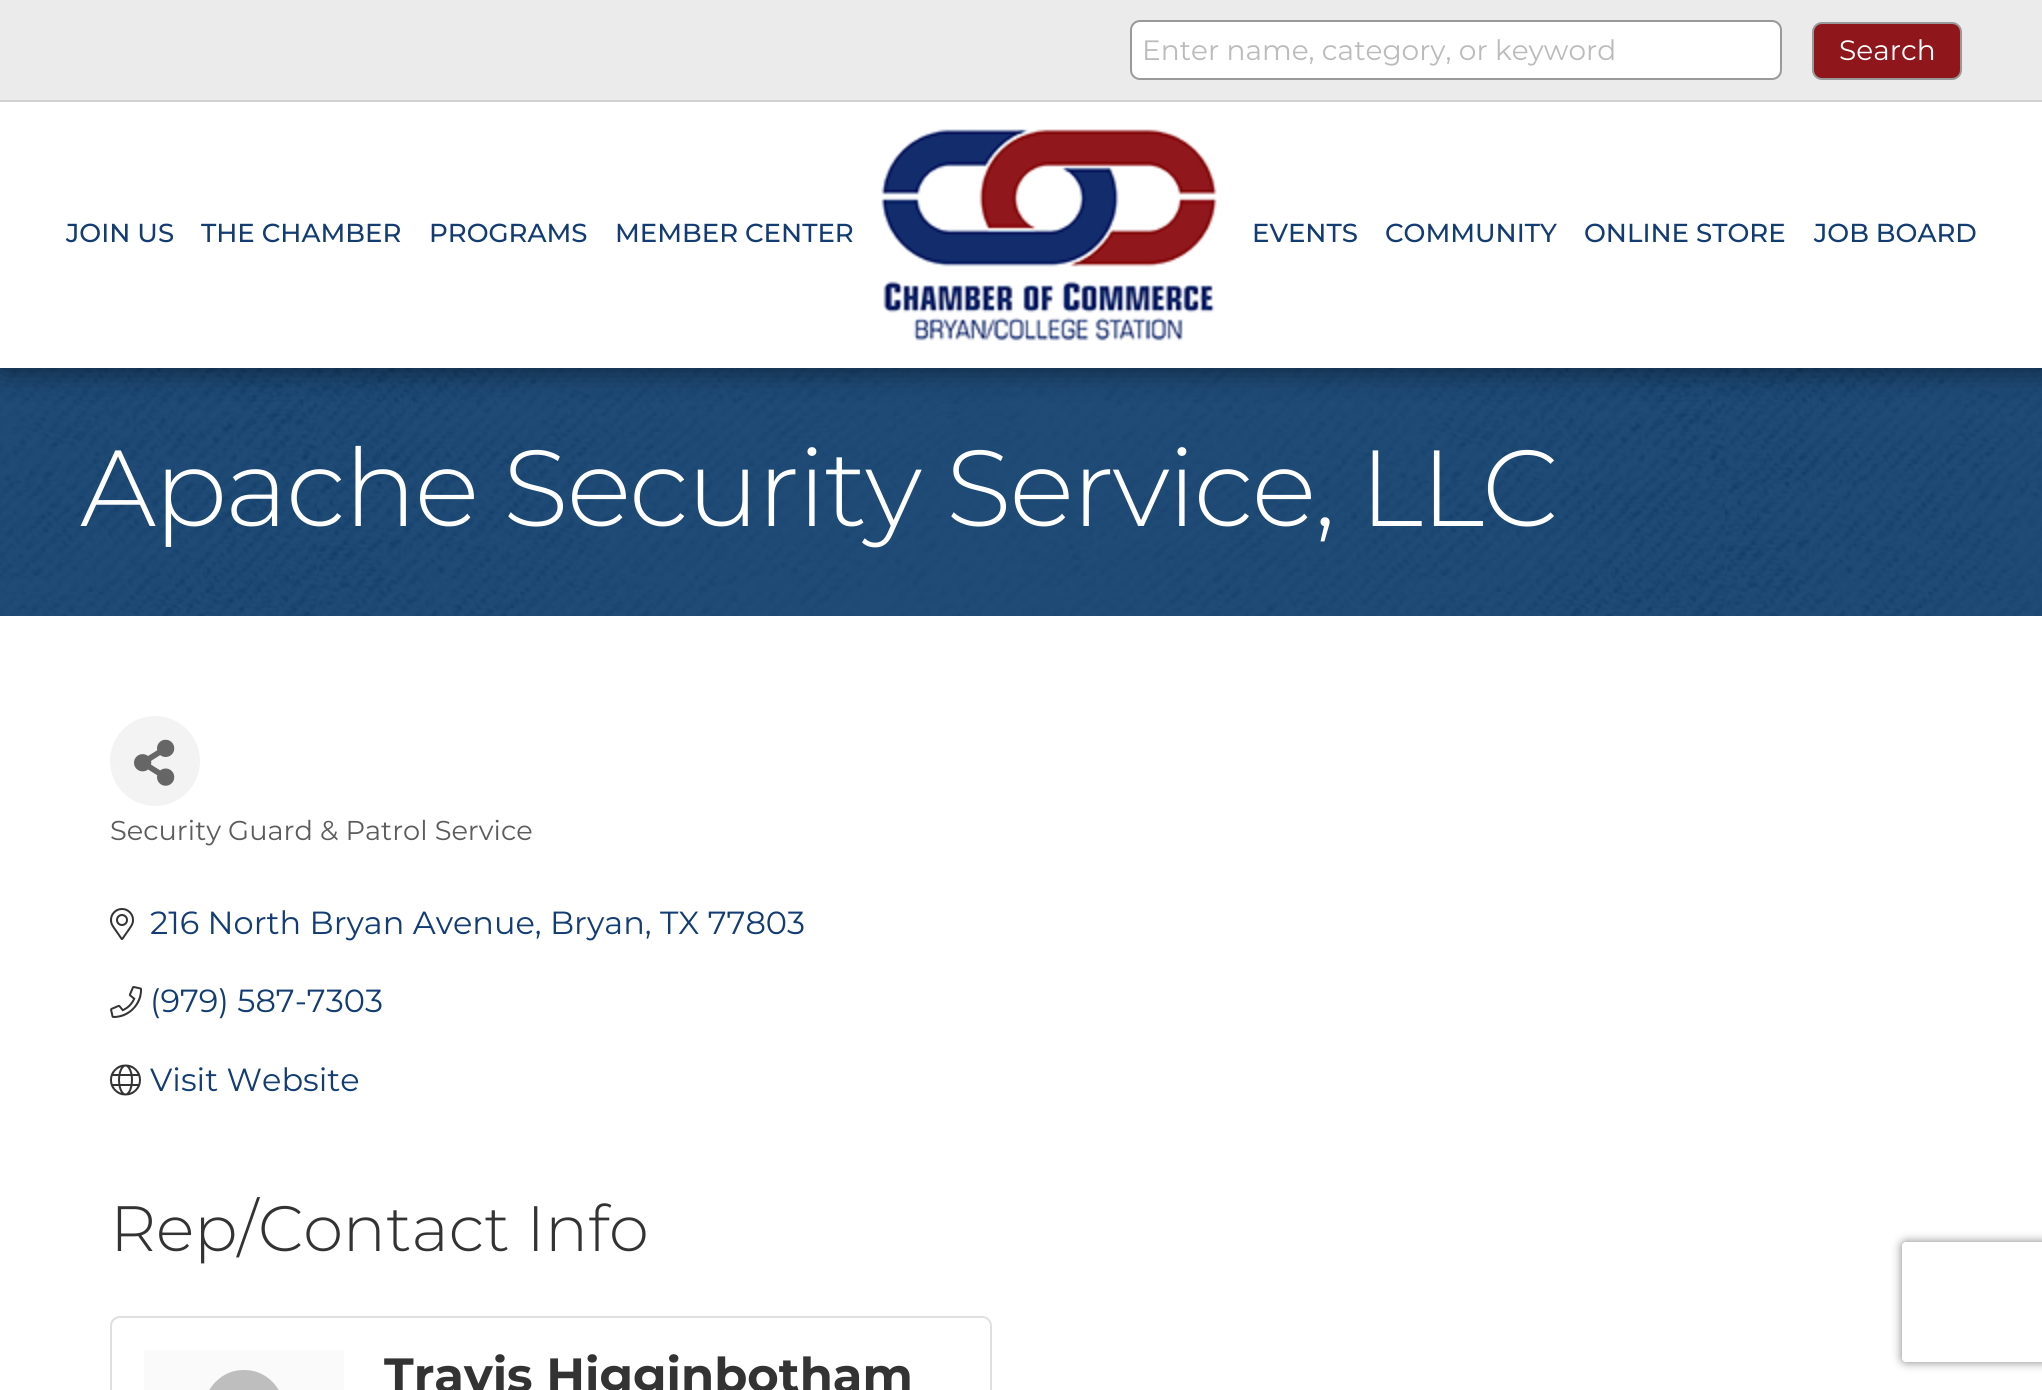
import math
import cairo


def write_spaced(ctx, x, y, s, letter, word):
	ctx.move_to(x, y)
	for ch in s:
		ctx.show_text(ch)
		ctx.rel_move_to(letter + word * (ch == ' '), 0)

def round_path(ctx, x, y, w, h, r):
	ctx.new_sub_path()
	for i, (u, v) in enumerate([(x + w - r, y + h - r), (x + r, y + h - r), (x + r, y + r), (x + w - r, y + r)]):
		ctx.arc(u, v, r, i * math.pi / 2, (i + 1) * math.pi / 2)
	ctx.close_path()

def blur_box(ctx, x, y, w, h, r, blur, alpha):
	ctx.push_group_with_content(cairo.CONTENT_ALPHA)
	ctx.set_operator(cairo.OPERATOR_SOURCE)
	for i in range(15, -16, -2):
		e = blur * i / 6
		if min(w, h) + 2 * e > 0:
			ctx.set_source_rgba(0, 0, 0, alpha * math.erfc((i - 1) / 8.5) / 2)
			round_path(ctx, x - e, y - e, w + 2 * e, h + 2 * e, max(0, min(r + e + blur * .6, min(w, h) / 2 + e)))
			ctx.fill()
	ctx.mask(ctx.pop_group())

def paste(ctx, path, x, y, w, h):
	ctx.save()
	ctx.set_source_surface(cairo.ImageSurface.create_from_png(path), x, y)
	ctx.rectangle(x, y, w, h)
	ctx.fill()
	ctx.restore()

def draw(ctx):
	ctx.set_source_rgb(1, 1, 1)
	ctx.paint()
	paste(ctx, 'media/2.png', 0, 368, 2042, 248)
	ctx.set_source_rgb(0, 0, 0)
	blur_box(ctx, 2, 104, 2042, 266, 0, 15, 0.5)
	ctx.set_source_rgb(0.918, 0.918, 0.918)
	ctx.rectangle(0, 0, 2042, 100)
	ctx.fill()
	ctx.set_source_rgb(0.82, 0.82, 0.82)
	ctx.rectangle(0, 100, 2042, 2)
	ctx.fill()
	ctx.set_source_rgb(1, 1, 1)
	round_path(ctx, 1131, 21, 650, 58, 9)
	ctx.fill_preserve()
	ctx.set_source_rgb(0.6, 0.6, 0.6)
	ctx.stroke()
	ctx.select_font_face('Montserrat')
	ctx.set_font_size(28)
	ctx.set_source_rgb(0.733, 0.733, 0.733)
	ctx.move_to(1142, 60)
	ctx.show_text('Enter name, category, or keyword')
	ctx.set_source_rgb(0.561, 0.086, 0.106)
	round_path(ctx, 1813, 23, 148, 56, 9)
	ctx.fill_preserve()
	ctx.set_source_rgb(0.6, 0.6, 0.6)
	ctx.stroke()
	ctx.set_source_rgb(1, 1, 1)
	ctx.move_to(1839, 60)
	ctx.show_text('Search')
	ctx.rectangle(0, 102, 2042, 266)
	ctx.fill()
	ctx.select_font_face('Montserrat Medium')
	ctx.set_font_size(26)
	ctx.set_source_rgb(0.075, 0.235, 0.451)
	for x, y, s in [
		(66, 242, 'JOIN US'),
		(201, 242, 'THE CHAMBER'),
		(429, 242, 'PROGRAMS'),
		(615, 242, 'MEMBER CENTER'),
	]:
		ctx.move_to(x, y)
		ctx.show_text(s)
	paste(ctx, 'media/1.png', 881, 129, 336, 212)
	for x, y, s in [
		(1252, 242, 'EVENTS'),
		(1385, 242, 'COMMUNITY'),
		(1584, 242, 'ONLINE STORE'),
		(1814, 242, 'JOB BOARD'),
	]:
		ctx.move_to(x, y)
		ctx.show_text(s)
	ctx.select_font_face('Montserrat Light')
	ctx.set_font_size(108)
	ctx.set_source_rgb(1, 1, 1)
	write_spaced(ctx, 80, 526, 'Apache Security Service, LLC', -2, 0)
	ctx.set_source_rgb(0.953, 0.953, 0.953)
	ctx.new_path()
	ctx.arc(155, 761, 45, 0, 2 * math.pi)
	ctx.fill()
	paste(ctx, 'media/3.png', 134, 739, 41, 47)
	ctx.select_font_face('Montserrat')
	ctx.set_font_size(27.25)
	ctx.set_source_rgb(0.361, 0.361, 0.361)
	ctx.move_to(110, 840)
	ctx.show_text('Security Guard & Patrol Service')
	paste(ctx, 'media/4.png', 110, 908, 24, 32)
	ctx.set_font_size(32)
	ctx.set_source_rgb(0.075, 0.235, 0.451)
	ctx.move_to(150, 934)
	ctx.show_text('216 North Bryan Avenue, Bryan, TX 77803')
	paste(ctx, 'media/5.png', 110, 986, 33, 32)
	ctx.move_to(150, 1012)
	ctx.show_text('(979) 587-7303')
	paste(ctx, 'media/6.png', 110, 1064, 31, 32)
	ctx.move_to(150, 1091)
	ctx.show_text('Visit Website')
	ctx.select_font_face('Montserrat Light')
	ctx.set_font_size(64)
	ctx.set_source_rgb(0.2, 0.2, 0.2)
	ctx.move_to(110, 1251)
	ctx.show_text('Rep/Contact Info')
	round_path(ctx, 111, 1317, 880, 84, 9)
	ctx.set_source_rgb(0.875, 0.875, 0.875)
	ctx.stroke()
	ctx.set_source_rgb(0.98, 0.98, 0.98)
	ctx.rectangle(144, 1350, 200, 40)
	ctx.fill()
	paste(ctx, 'media/7.png', 209, 1370, 70, 20)
	ctx.select_font_face('Montserrat', cairo.FONT_SLANT_NORMAL, cairo.FONT_WEIGHT_BOLD)
	ctx.set_font_size(48)
	ctx.set_source_rgb(0.2, 0.2, 0.2)
	ctx.move_to(384, 1392)
	ctx.show_text('Travis Higginbotham')
	ctx.save()
	ctx.set_fill_rule(cairo.FILL_RULE_EVEN_ODD)
	ctx.new_path()
	ctx.move_to(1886, 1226)
	ctx.line_to(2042, 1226)
	ctx.line_to(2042, 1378)
	ctx.line_to(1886, 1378)
	ctx.close_path()
	ctx.move_to(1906, 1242)
	ctx.line_to(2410, 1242)
	ctx.curve_to(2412, 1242, 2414, 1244, 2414, 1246)
	ctx.line_to(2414, 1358)
	ctx.curve_to(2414, 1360, 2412, 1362, 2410, 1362)
	ctx.line_to(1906, 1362)
	ctx.curve_to(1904, 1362, 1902, 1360, 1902, 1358)
	ctx.line_to(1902, 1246)
	ctx.curve_to(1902, 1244, 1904, 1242, 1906, 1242)
	ctx.close_path()
	ctx.clip()
	ctx.set_source_rgb(0.502, 0.502, 0.502)
	blur_box(ctx, 1902, 1242, 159, 120, 4, 5, 1)
	ctx.restore()


surface = cairo.ImageSurface(cairo.FORMAT_RGB24, 2042, 1390)
ctx = cairo.Context(surface)
options = cairo.FontOptions()
options.set_hint_metrics(cairo.HINT_METRICS_OFF)
options.set_hint_style(cairo.HINT_STYLE_NONE)
ctx.set_font_options(options)
ctx.set_miter_limit(4)
draw(ctx)
surface.write_to_png('image.png')
